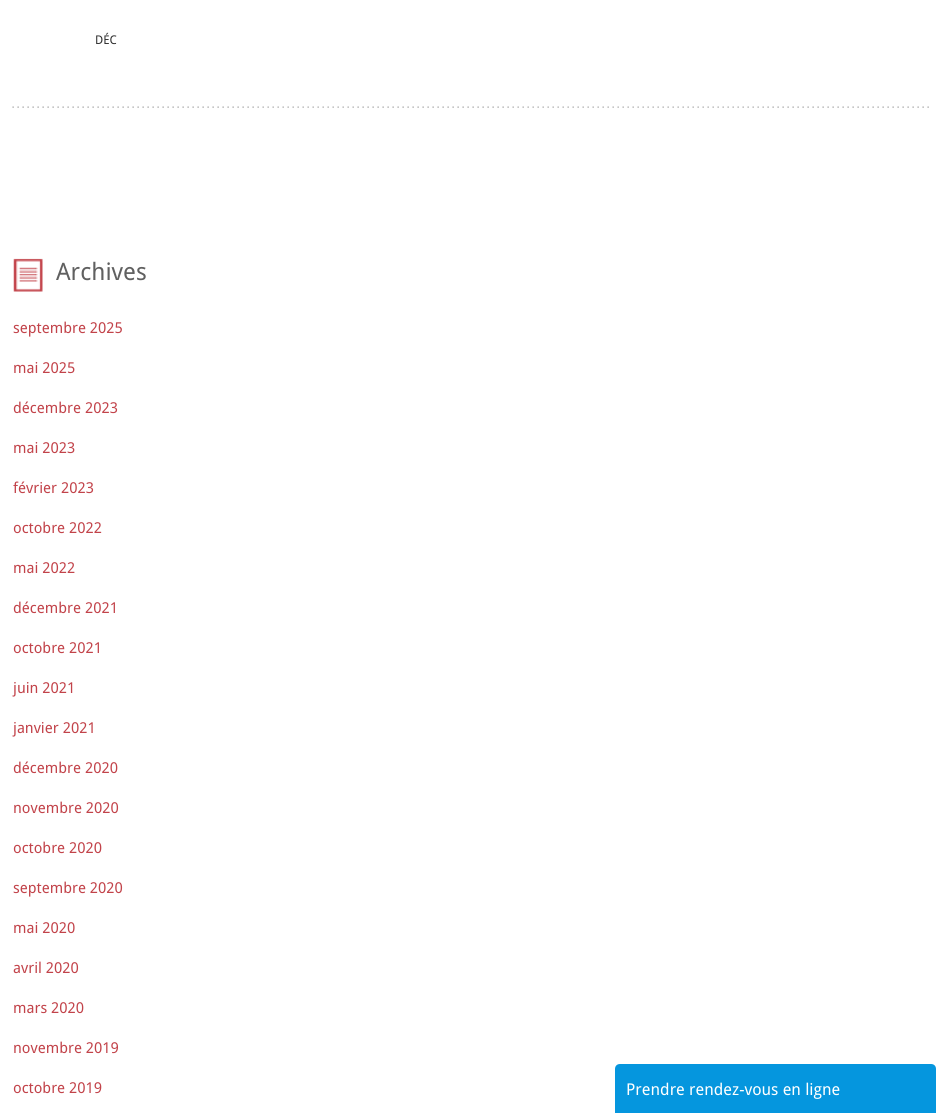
import math
import cairo


def paste(ctx, path, x, y, w, h):
	ctx.save()
	ctx.set_source_surface(cairo.ImageSurface.create_from_png(path), x, y)
	ctx.rectangle(x, y, w, h)
	ctx.fill()
	ctx.restore()

def draw(ctx):
	ctx.set_source_rgb(1, 1, 1)
	ctx.paint()
	paste(ctx, 'media/1.png', 12, 106, 917, 2)
	ctx.select_font_face('Droid Sans')
	ctx.set_font_size(12)
	ctx.set_source_rgb(0.188, 0.188, 0.188)
	ctx.move_to(95, 44)
	ctx.show_text('DÉC')
	paste(ctx, 'media/2.png', 13, 258, 30, 34)
	ctx.set_font_size(24)
	ctx.set_source_rgb(0.376, 0.376, 0.376)
	ctx.move_to(56, 280)
	ctx.show_text('Archives')
	ctx.set_font_size(15)
	ctx.set_source_rgb(0.761, 0.263, 0.29)
	for x, y, s in [
		(13, 333, 'septembre 2025'),
		(13, 373, 'mai 2025'),
		(13, 413, 'décembre 2023'),
		(13, 453, 'mai 2023'),
		(13, 493, 'février 2023'),
		(13, 533, 'octobre 2022'),
		(13, 573, 'mai 2022'),
		(13, 613, 'décembre 2021'),
		(13, 653, 'octobre 2021'),
		(13, 693, 'juin 2021'),
		(13, 733, 'janvier 2021'),
		(13, 773, 'décembre 2020'),
		(13, 813, 'novembre 2020'),
		(13, 853, 'octobre 2020'),
		(13, 893, 'septembre 2020'),
		(13, 933, 'mai 2020'),
		(13, 973, 'avril 2020'),
		(13, 1013, 'mars 2020'),
		(13, 1053, 'novembre 2019'),
		(13, 1093, 'octobre 2019'),
	]:
		ctx.move_to(x, y)
		ctx.show_text(s)
	ctx.set_source_rgb(0.02, 0.588, 0.871)
	ctx.new_path()
	ctx.move_to(620, 1064)
	ctx.line_to(931, 1064)
	ctx.curve_to(934, 1064, 936, 1066, 936, 1069)
	ctx.line_to(936, 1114)
	ctx.line_to(615, 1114)
	ctx.line_to(615, 1069)
	ctx.curve_to(615, 1066, 617, 1064, 620, 1064)
	ctx.close_path()
	ctx.fill()
	ctx.set_font_size(16.25)
	ctx.set_source_rgb(1, 1, 1)
	ctx.move_to(626, 1095)
	ctx.show_text('Prendre rendez-vous en ligne')


surface = cairo.ImageSurface(cairo.FORMAT_RGB24, 942, 1113)
ctx = cairo.Context(surface)
options = cairo.FontOptions()
options.set_hint_metrics(cairo.HINT_METRICS_OFF)
options.set_hint_style(cairo.HINT_STYLE_NONE)
ctx.set_font_options(options)
ctx.set_miter_limit(4)
draw(ctx)
surface.write_to_png('image.png')
